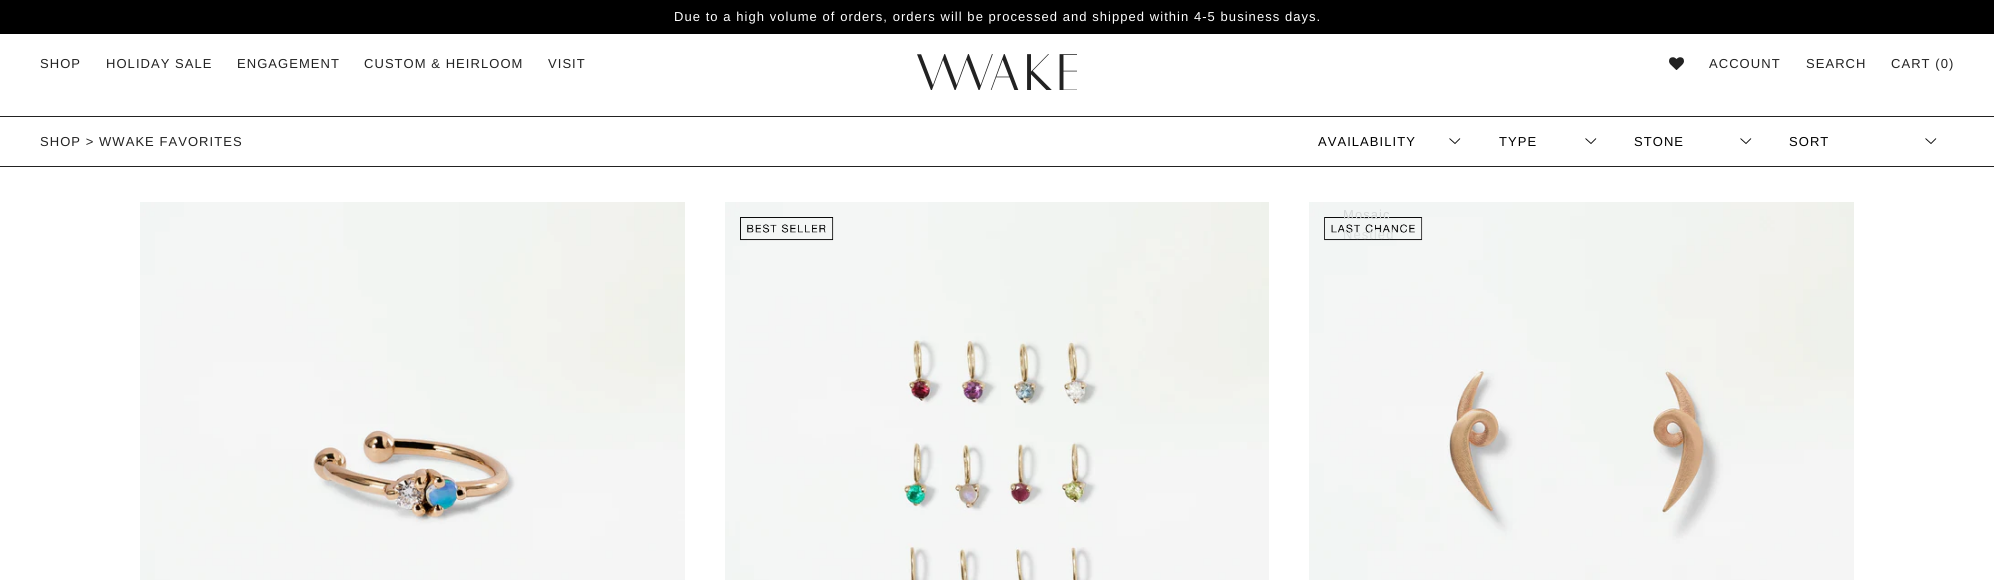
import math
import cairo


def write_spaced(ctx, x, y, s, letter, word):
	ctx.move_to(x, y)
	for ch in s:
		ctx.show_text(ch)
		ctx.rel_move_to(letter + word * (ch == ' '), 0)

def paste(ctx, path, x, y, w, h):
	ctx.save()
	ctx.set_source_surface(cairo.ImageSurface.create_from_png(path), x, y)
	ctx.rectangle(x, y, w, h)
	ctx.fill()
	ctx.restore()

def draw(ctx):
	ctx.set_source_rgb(1, 1, 1)
	ctx.paint()
	ctx.set_source_rgb(0, 0, 0)
	ctx.rectangle(0, 0, 1994, 34)
	ctx.fill()
	ctx.select_font_face('Liberation Sans')
	ctx.set_font_size(13)
	ctx.set_source_rgb(1, 1, 1)
	write_spaced(ctx, 674, 21, 'Due to a high volume of orders, orders will be processed and shipped within 4-5 business days.', 1.05, 0)
	paste(ctx, 'media/1.png', 917, 54, 160, 36)
	ctx.set_source_rgb(0.133, 0.133, 0.133)
	for x, y, s in [
		(40, 68, 'SHOP'),
		(106, 68, 'HOLIDAY SALE'),
		(237, 68, 'ENGAGEMENT'),
	]:
		write_spaced(ctx, x, y, s, 1.05, 0)
	paste(ctx, 'media/6.png', 1309, 202, 545, 378)
	paste(ctx, 'media/7.png', 1324, 217, 99, 24)
	ctx.set_source_rgb(0.839, 0.847, 0.847)
	write_spaced(ctx, 1343, 219, 'Mosaic', 1.05, 0)
	ctx.set_source_rgb(0.871, 0.882, 0.878)
	write_spaced(ctx, 1343, 239, 'Nestled', 1.05, 0)
	ctx.set_source_rgb(0.133, 0.133, 0.133)
	write_spaced(ctx, 364, 68, 'CUSTOM & HEIRLOOM', 1.05, 0)
	write_spaced(ctx, 548, 68, 'VISIT', 1.05, 0)
	paste(ctx, 'media/2.png', 1669, 57, 15, 13)
	for x, y, s in [
		(1709, 68, 'ACCOUNT'),
		(1806, 68, 'SEARCH'),
		(1891, 68, 'CART (0)'),
	]:
		write_spaced(ctx, x, y, s, 1.05, 0)
	ctx.rectangle(0, 116, 1994, 1)
	ctx.fill()
	ctx.rectangle(0, 166, 1994, 1)
	ctx.fill()
	write_spaced(ctx, 40, 146, 'SHOP > WWAKE FAVORITES', 1.05, 0)
	ctx.new_path()
	ctx.move_to(1460, 138.5)
	ctx.line_to(1455, 143.5)
	ctx.line_to(1449.5, 138.5)
	ctx.set_source_rgb(0, 0, 0)
	ctx.set_line_width(0.9)
	ctx.stroke()
	write_spaced(ctx, 1318, 146, 'AVAILABILITY', 1.05, 0)
	ctx.new_path()
	ctx.move_to(1596, 138.5)
	ctx.line_to(1591, 143.5)
	ctx.line_to(1585.5, 138.5)
	ctx.stroke()
	write_spaced(ctx, 1499, 146, 'TYPE', 1.05, 0)
	ctx.new_path()
	ctx.move_to(1751, 138.5)
	ctx.line_to(1746, 143.5)
	ctx.line_to(1740.5, 138.5)
	ctx.stroke()
	write_spaced(ctx, 1634, 146, 'STONE', 1.05, 0)
	ctx.new_path()
	ctx.move_to(1936, 138.5)
	ctx.line_to(1931, 143.5)
	ctx.line_to(1925.5, 138.5)
	ctx.stroke()
	write_spaced(ctx, 1789, 146, 'SORT', 1.05, 0)
	paste(ctx, 'media/3.png', 140, 202, 545, 378)
	paste(ctx, 'media/4.png', 725, 202, 544, 378)
	paste(ctx, 'media/5.png', 740, 217, 94, 24)


surface = cairo.ImageSurface(cairo.FORMAT_RGB24, 1994, 580)
ctx = cairo.Context(surface)
options = cairo.FontOptions()
options.set_hint_metrics(cairo.HINT_METRICS_OFF)
options.set_hint_style(cairo.HINT_STYLE_NONE)
ctx.set_font_options(options)
ctx.set_miter_limit(4)
draw(ctx)
surface.write_to_png('image.png')
